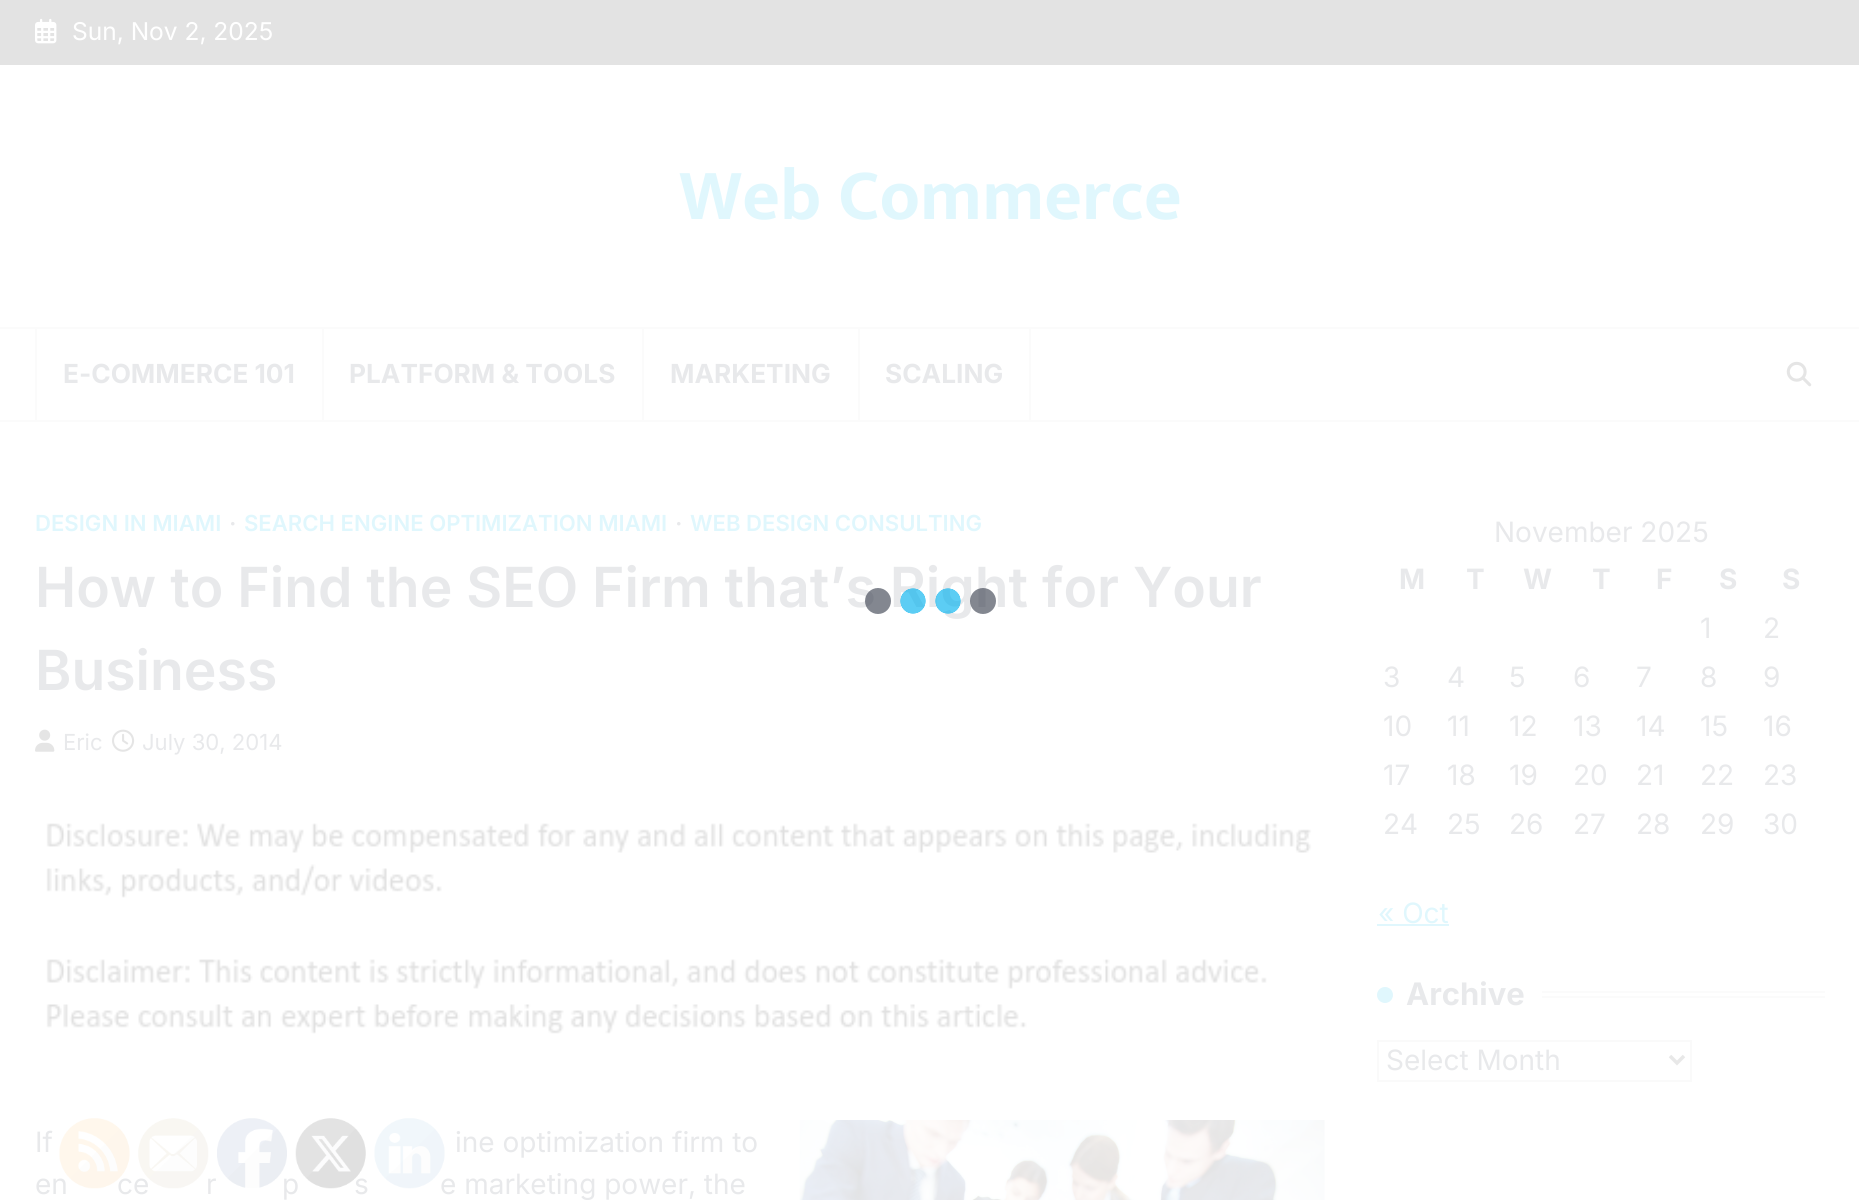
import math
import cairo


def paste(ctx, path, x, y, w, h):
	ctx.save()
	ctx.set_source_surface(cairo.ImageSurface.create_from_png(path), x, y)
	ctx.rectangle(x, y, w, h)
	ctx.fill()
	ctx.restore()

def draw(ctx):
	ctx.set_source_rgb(1, 1, 1)
	ctx.paint()
	ctx.set_source_rgb(0.89, 0.89, 0.89)
	ctx.rectangle(0, 0, 1859, 65)
	ctx.fill()
	paste(ctx, 'media/1.png', 35, 18, 22, 26)
	ctx.select_font_face('Inter')
	ctx.set_font_size(24.5)
	ctx.set_source_rgb(1, 1, 1)
	ctx.move_to(72, 40)
	ctx.show_text('Sun, Nov 2, 2025')
	ctx.select_font_face('Mukta', cairo.FONT_SLANT_NORMAL, cairo.FONT_WEIGHT_BOLD)
	ctx.set_font_size(72.75)
	ctx.set_source_rgb(0.878, 0.965, 0.992)
	ctx.move_to(679, 219)
	ctx.show_text('Web Commerce')
	ctx.set_source_rgb(0.984, 0.984, 0.984)
	ctx.rectangle(0, 327, 1859, 2)
	ctx.rectangle(0, 420, 1859, 2)
	ctx.rectangle(35, 329, 2, 91)
	ctx.fill()
	ctx.select_font_face('Inter', cairo.FONT_SLANT_NORMAL, cairo.FONT_WEIGHT_BOLD)
	ctx.set_font_size(26.25)
	ctx.set_source_rgb(0.91, 0.914, 0.918)
	ctx.move_to(63, 383)
	ctx.show_text('E-COMMERCE 101')
	ctx.set_source_rgb(0.984, 0.984, 0.984)
	ctx.rectangle(322, 329, 2, 91)
	ctx.fill()
	ctx.set_source_rgb(0.91, 0.914, 0.918)
	ctx.move_to(349, 383)
	ctx.show_text('PLATFORM & TOOLS')
	ctx.set_source_rgb(0.984, 0.984, 0.984)
	ctx.rectangle(642, 329, 2, 91)
	ctx.fill()
	ctx.set_source_rgb(0.91, 0.914, 0.918)
	ctx.move_to(670, 383)
	ctx.show_text('MARKETING')
	ctx.set_source_rgb(0.984, 0.984, 0.984)
	ctx.rectangle(1029, 329, 2, 91)
	ctx.fill()
	ctx.rectangle(858, 329, 2, 91)
	ctx.fill()
	ctx.set_source_rgb(0.91, 0.914, 0.918)
	ctx.move_to(885, 383)
	ctx.show_text('SCALING')
	paste(ctx, 'media/2.png', 1786, 361, 26, 26)
	ctx.select_font_face('Inter SemiBold')
	ctx.set_font_size(22.1)
	ctx.set_source_rgb(0.878, 0.965, 0.992)
	ctx.move_to(35, 531)
	ctx.show_text('DESIGN IN MIAMI')
	ctx.select_font_face('Liberation Serif', cairo.FONT_SLANT_NORMAL, cairo.FONT_WEIGHT_BOLD)
	ctx.set_source_rgb(0.91, 0.914, 0.918)
	ctx.move_to(230, 531)
	ctx.show_text('∙')
	ctx.select_font_face('Inter SemiBold')
	ctx.set_source_rgb(0.878, 0.965, 0.992)
	ctx.move_to(244, 531)
	ctx.show_text('SEARCH ENGINE OPTIMIZATION MIAMI')
	ctx.select_font_face('Liberation Serif', cairo.FONT_SLANT_NORMAL, cairo.FONT_WEIGHT_BOLD)
	ctx.set_source_rgb(0.91, 0.914, 0.918)
	ctx.move_to(676, 531)
	ctx.show_text('∙')
	ctx.select_font_face('Inter SemiBold')
	ctx.set_source_rgb(0.878, 0.965, 0.992)
	ctx.move_to(690, 531)
	ctx.show_text('WEB DESIGN CONSULTING')
	ctx.set_font_size(55.25)
	ctx.set_source_rgb(0.91, 0.914, 0.918)
	ctx.move_to(35, 607)
	ctx.show_text('How to Find the SEO Firm that’s Right for Your')
	ctx.move_to(35, 690)
	ctx.show_text('Business')
	paste(ctx, 'media/3.png', 35, 729, 20, 23)
	ctx.select_font_face('Inter')
	ctx.set_font_size(22.1)
	ctx.move_to(63, 750)
	ctx.show_text('Eric')
	paste(ctx, 'media/4.png', 112, 729, 23, 23)
	ctx.move_to(142, 750)
	ctx.show_text('July 30, 2014')
	paste(ctx, 'media/5.png', 46, 823, 1266, 211)
	ctx.set_font_size(28)
	for x, y, s in [
		(35, 1152, 'If'),
		(455, 1152, 'ine optimization firm to'),
		(35, 1194, 'en'),
		(117, 1194, 'ce'),
		(206, 1194, 'r'),
		(282, 1194, 'p'),
		(354, 1194, 's'),
		(440, 1194, 'e marketing power, the'),
	]:
		ctx.move_to(x, y)
		ctx.show_text(s)
	paste(ctx, 'media/6.png', 799, 1120, 526, 80)
	ctx.move_to(1494, 542)
	ctx.show_text('November 2025')
	ctx.select_font_face('Inter', cairo.FONT_SLANT_NORMAL, cairo.FONT_WEIGHT_BOLD)
	for x, y, s in [
		(1399, 589, 'M'),
		(1466, 589, 'T'),
		(1523, 589, 'W'),
		(1592, 589, 'T'),
		(1656, 589, 'F'),
		(1719, 589, 'S'),
		(1782, 589, 'S'),
	]:
		ctx.move_to(x, y)
		ctx.show_text(s)
	ctx.select_font_face('Inter')
	for x, y, s in [
		(1700, 638, '1'),
		(1763, 638, '2'),
		(1383, 687, '3'),
		(1447, 687, '4'),
		(1509, 687, '5'),
		(1573, 687, '6'),
		(1636, 687, '7'),
		(1700, 687, '8'),
		(1763, 687, '9'),
		(1383, 736, '10'),
		(1447, 736, '11'),
		(1509, 736, '12'),
		(1573, 736, '13'),
		(1636, 736, '14'),
		(1700, 736, '15'),
		(1763, 736, '16'),
		(1383, 785, '17'),
		(1447, 785, '18'),
		(1509, 785, '19'),
		(1573, 785, '20'),
		(1636, 785, '21'),
		(1700, 785, '22'),
		(1763, 785, '23'),
		(1383, 834, '24'),
		(1447, 834, '25'),
		(1509, 834, '26'),
		(1573, 834, '27'),
		(1636, 834, '28'),
		(1700, 834, '29'),
		(1763, 834, '30'),
	]:
		ctx.move_to(x, y)
		ctx.show_text(s)
	ctx.set_source_rgb(0.878, 0.965, 0.992)
	ctx.move_to(1378, 923)
	ctx.show_text('« Oct')
	ctx.rectangle(1377, 924, 72, 2)
	ctx.fill()
	ctx.arc(1385, 995, 8, 0, 2 * math.pi)
	ctx.fill()
	ctx.select_font_face('Inter', cairo.FONT_SLANT_NORMAL, cairo.FONT_WEIGHT_BOLD)
	ctx.set_font_size(31)
	ctx.set_source_rgb(0.91, 0.914, 0.918)
	ctx.move_to(1406, 1005)
	ctx.show_text('Archive')
	ctx.set_source_rgb(0.984, 0.984, 0.984)
	ctx.rectangle(1542, 991, 283, 2)
	ctx.fill()
	ctx.rectangle(1542, 996, 283, 2)
	ctx.fill()
	ctx.rectangle(1378, 1041, 313, 40)
	ctx.set_source_rgb(0.98, 0.98, 0.98)
	ctx.stroke()
	ctx.new_path()
	ctx.move_to(1670, 1056)
	ctx.line_to(1677, 1063)
	ctx.line_to(1684, 1056)
	ctx.set_source_rgb(0.91, 0.91, 0.91)
	ctx.set_line_width(3.5)
	ctx.stroke()
	ctx.select_font_face('Inter')
	ctx.set_font_size(28)
	ctx.set_source_rgb(0.91, 0.914, 0.918)
	ctx.move_to(1386, 1070)
	ctx.show_text('Select Month')
	gradient = cairo.RadialGradient(948, 601, 0, 948, 601, 13)
	gradient.add_color_stop_rgba(0.95, 0, 0.694, 0.929, 0.64)
	gradient.add_color_stop_rgba(1, 0, 0.694, 0.929, 0)
	ctx.set_source(gradient)
	ctx.rectangle(935, 588, 26, 26)
	ctx.fill()
	gradient = cairo.RadialGradient(913, 601, 0, 913, 601, 13)
	gradient.add_color_stop_rgba(0.95, 0, 0.694, 0.929, 0.64)
	gradient.add_color_stop_rgba(1, 0, 0.694, 0.929, 0)
	ctx.set_source(gradient)
	ctx.rectangle(900, 588, 26, 26)
	ctx.fill()
	ctx.set_source_rgba(0.239, 0.267, 0.322, 0.64)
	ctx.arc(878, 601, 13, 0, 2 * math.pi)
	ctx.fill()
	ctx.arc(983, 601, 13, 0, 2 * math.pi)
	ctx.fill()
	paste(ctx, 'media/7.png', 59, 1118, 71, 71)
	paste(ctx, 'media/8.png', 138, 1118, 71, 71)
	paste(ctx, 'media/9.png', 217, 1118, 70, 71)
	paste(ctx, 'media/10.png', 295, 1118, 71, 71)
	paste(ctx, 'media/11.png', 374, 1118, 71, 71)


surface = cairo.ImageSurface(cairo.FORMAT_RGB24, 1859, 1200)
ctx = cairo.Context(surface)
options = cairo.FontOptions()
options.set_hint_metrics(cairo.HINT_METRICS_OFF)
options.set_hint_style(cairo.HINT_STYLE_NONE)
ctx.set_font_options(options)
ctx.set_miter_limit(4)
draw(ctx)
surface.write_to_png('image.png')
